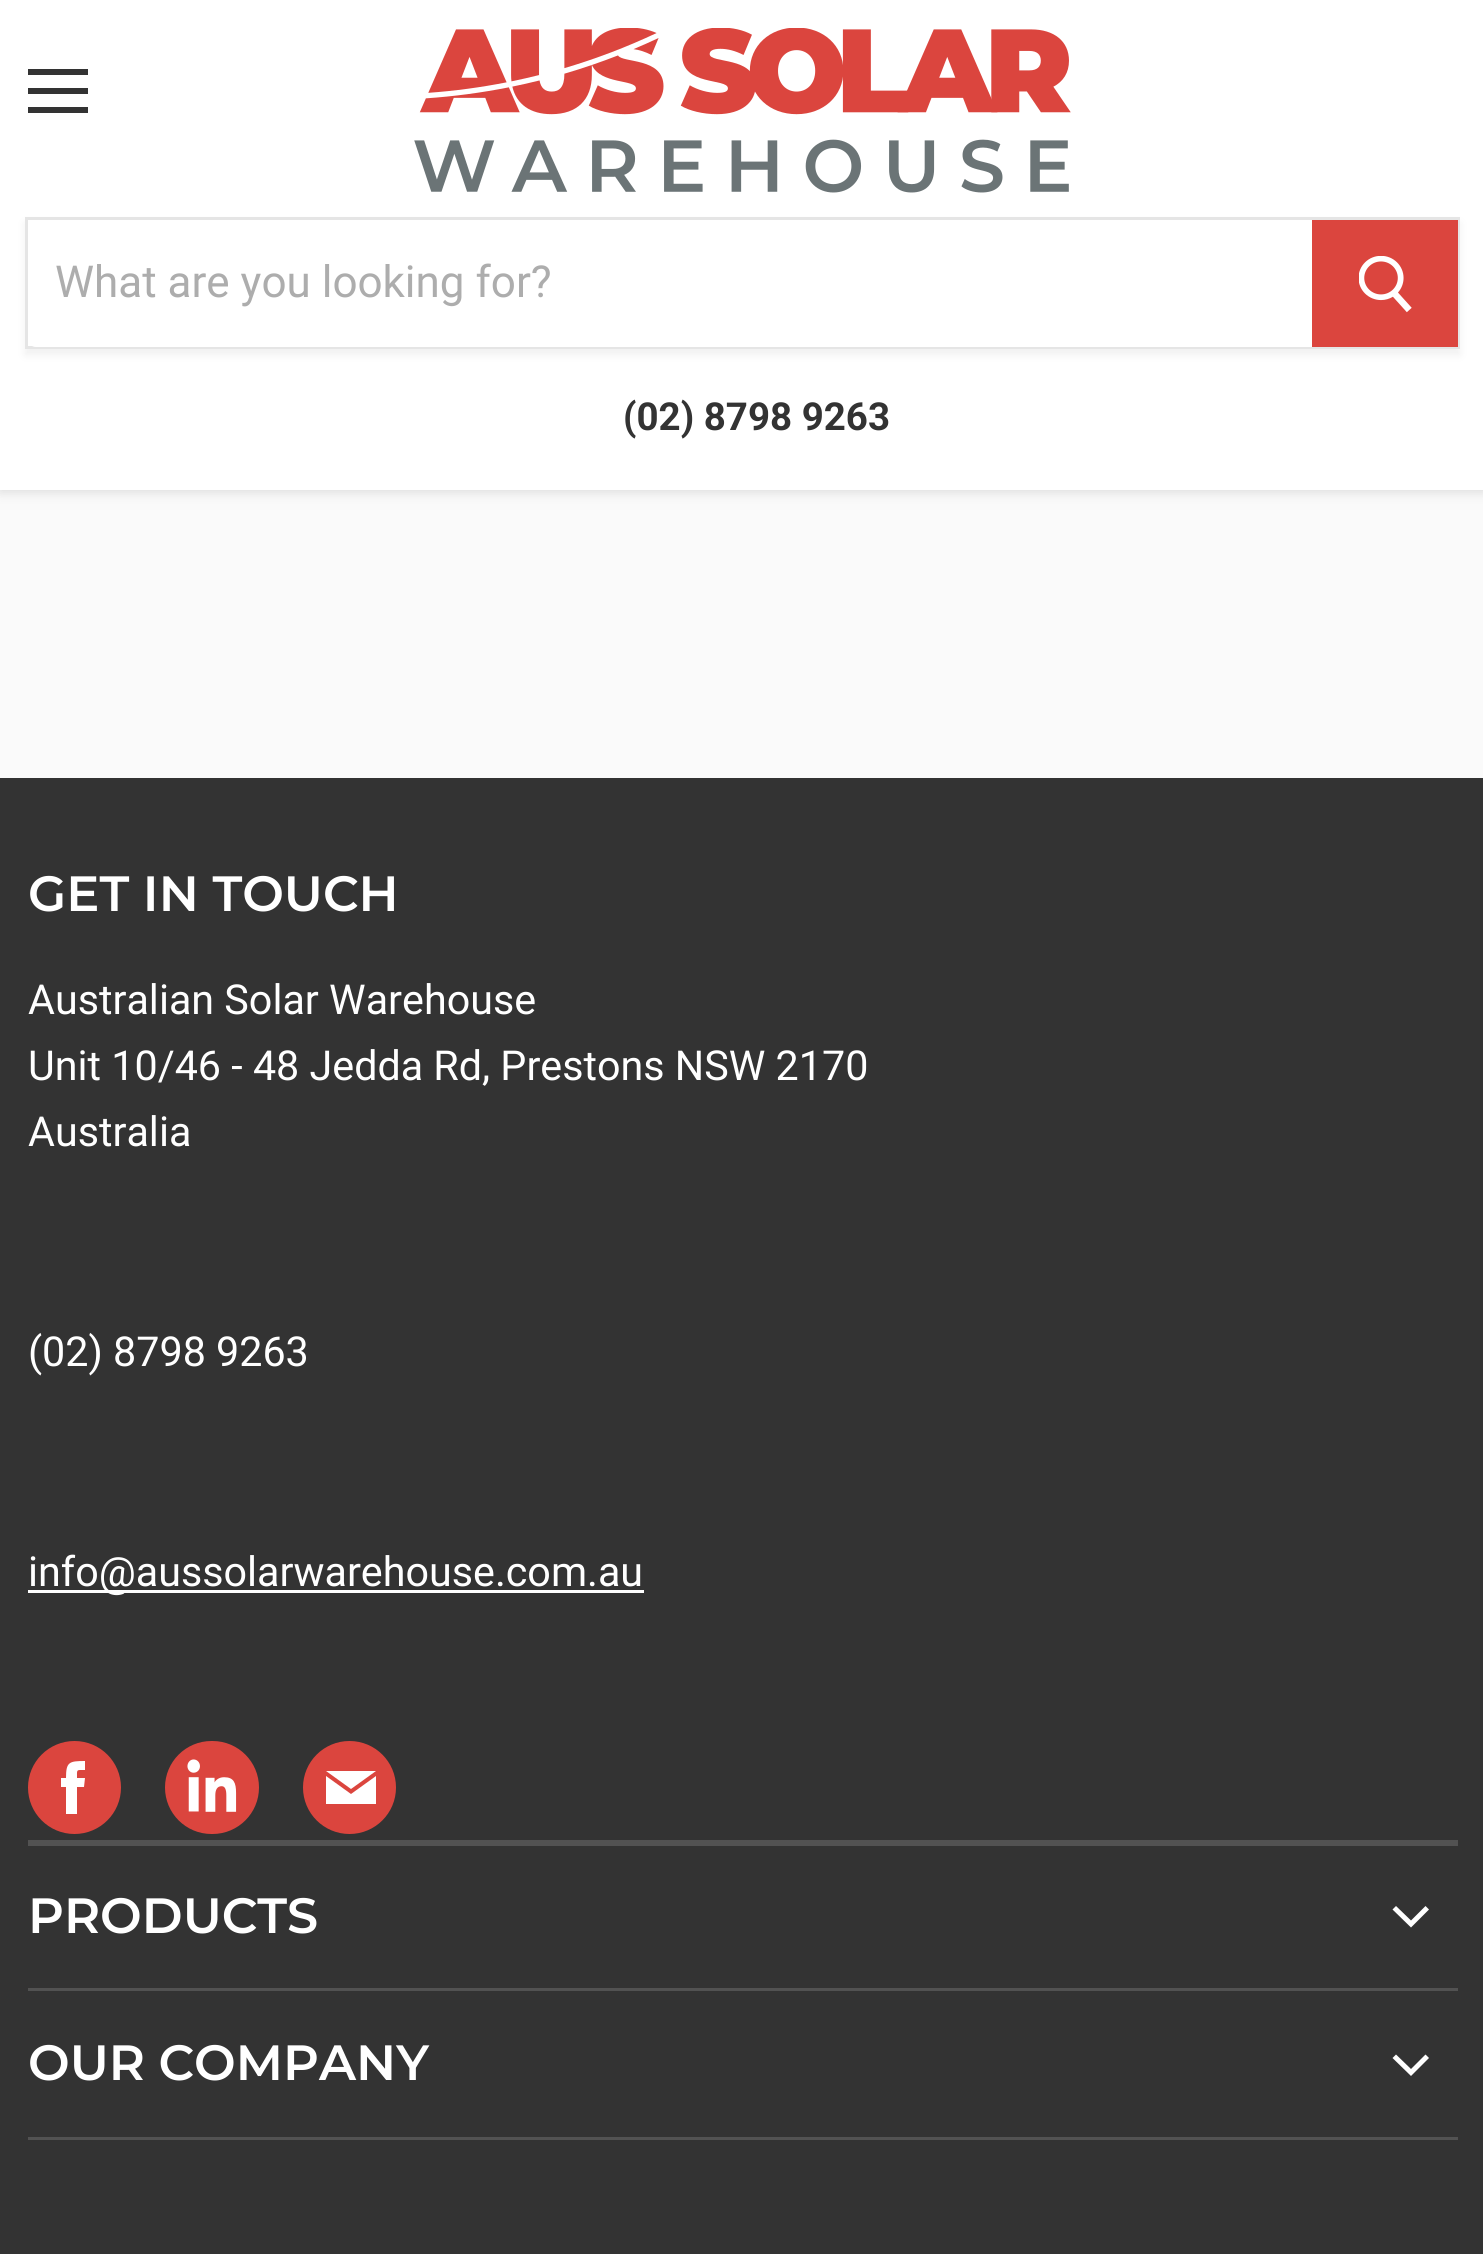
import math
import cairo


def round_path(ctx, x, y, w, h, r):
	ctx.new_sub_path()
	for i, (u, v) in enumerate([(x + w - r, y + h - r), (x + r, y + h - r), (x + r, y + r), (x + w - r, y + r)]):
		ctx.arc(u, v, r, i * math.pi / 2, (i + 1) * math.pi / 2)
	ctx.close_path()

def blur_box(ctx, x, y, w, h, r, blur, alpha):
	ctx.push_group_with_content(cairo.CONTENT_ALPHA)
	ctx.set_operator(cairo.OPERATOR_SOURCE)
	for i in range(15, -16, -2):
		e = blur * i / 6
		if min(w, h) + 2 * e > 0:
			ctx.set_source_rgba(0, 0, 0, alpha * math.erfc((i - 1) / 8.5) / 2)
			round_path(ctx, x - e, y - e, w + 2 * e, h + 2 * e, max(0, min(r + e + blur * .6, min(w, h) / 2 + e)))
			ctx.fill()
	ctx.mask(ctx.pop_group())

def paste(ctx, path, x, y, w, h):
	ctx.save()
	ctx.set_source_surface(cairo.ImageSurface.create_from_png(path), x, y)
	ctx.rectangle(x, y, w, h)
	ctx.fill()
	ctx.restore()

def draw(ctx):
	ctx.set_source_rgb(0.98, 0.98, 0.98)
	ctx.paint()
	ctx.set_source_rgb(0.498, 0.498, 0.498)
	blur_box(ctx, 0, 3, 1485, 489, 0, 5.5, 0.25)
	ctx.set_source_rgb(1, 1, 1)
	ctx.rectangle(0, 0, 1483, 490)
	ctx.fill()
	ctx.set_source_rgb(0.2, 0.2, 0.2)
	ctx.rectangle(28, 69, 60, 6)
	ctx.rectangle(28, 88, 60, 6)
	ctx.rectangle(28, 107, 60, 6)
	ctx.fill()
	paste(ctx, 'media/1.png', 414, 28, 657, 165)
	ctx.save()
	ctx.set_fill_rule(cairo.FILL_RULE_EVEN_ODD)
	ctx.new_path()
	ctx.move_to(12, 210)
	ctx.line_to(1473, 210)
	ctx.line_to(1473, 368)
	ctx.line_to(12, 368)
	ctx.close_path()
	ctx.move_to(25, 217)
	ctx.line_to(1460, 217)
	ctx.line_to(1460, 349)
	ctx.line_to(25, 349)
	ctx.close_path()
	ctx.clip()
	ctx.set_source_rgb(0.498, 0.498, 0.498)
	blur_box(ctx, 25, 223, 1435, 132, 0, 4, 0.11)
	ctx.restore()
	ctx.rectangle(26.5, 218.5, 1432, 129)
	ctx.set_source_rgb(0.898, 0.898, 0.898)
	ctx.set_line_width(3)
	ctx.stroke()
	ctx.set_source_rgb(1, 1, 1)
	ctx.new_path()
	ctx.move_to(36, 220)
	ctx.line_to(1312, 220)
	ctx.line_to(1312, 347)
	ctx.line_to(36, 347)
	ctx.curve_to(31.5, 347, 28, 343.5, 28, 339)
	ctx.line_to(28, 228)
	ctx.curve_to(28, 223.5, 31.5, 220, 36, 220)
	ctx.close_path()
	ctx.fill()
	ctx.select_font_face('Roboto')
	ctx.set_font_size(44)
	ctx.set_source_rgb(0.678, 0.678, 0.678)
	ctx.move_to(55, 297)
	ctx.show_text('What are you looking for?')
	ctx.set_source_rgb(0.859, 0.271, 0.243)
	ctx.rectangle(1312, 220, 146, 127)
	ctx.fill()
	paste(ctx, 'media/2.png', 1359, 256, 53, 57)
	ctx.select_font_face('Roboto', cairo.FONT_SLANT_NORMAL, cairo.FONT_WEIGHT_BOLD)
	ctx.set_font_size(38.5)
	ctx.set_source_rgb(0.2, 0.2, 0.2)
	ctx.move_to(623, 430)
	ctx.show_text('(02) 8798 9263')
	ctx.rectangle(0, 778, 1483, 1476)
	ctx.fill()
	ctx.set_source_rgb(0.322, 0.322, 0.322)
	ctx.rectangle(28, 1840, 1430, 6)
	ctx.fill()
	ctx.select_font_face('Montserrat SemiBold')
	ctx.set_font_size(49.5)
	ctx.set_source_rgb(1, 1, 1)
	ctx.move_to(28, 911)
	ctx.show_text('GET IN TOUCH')
	ctx.select_font_face('Roboto')
	ctx.set_font_size(41.25)
	for x, y, s in [
		(28, 1014, 'Australian Solar Warehouse'),
		(28, 1080, 'Unit 10/46 - 48 Jedda Rd, Prestons NSW 2170'),
		(28, 1146, 'Australia'),
		(28, 1366, '(02) 8798 9263'),
	]:
		ctx.move_to(x, y)
		ctx.show_text(s)
	ctx.rectangle(28, 1590, 616, 3)
	ctx.fill()
	ctx.move_to(28, 1586)
	ctx.show_text('info@aussolarwarehouse.com.au')
	ctx.set_source_rgb(0.859, 0.271, 0.243)
	ctx.new_path()
	ctx.arc(74.5, 1787.5, 46.5, 0, 2 * math.pi)
	ctx.fill()
	ctx.set_source_rgb(1, 1, 1)
	ctx.set_fill_rule(cairo.FILL_RULE_EVEN_ODD)
	ctx.new_path()
	ctx.move_to(84, 1787)
	ctx.line_to(77, 1787)
	ctx.line_to(77, 1814)
	ctx.line_to(66, 1814)
	ctx.line_to(66, 1787)
	ctx.line_to(61, 1787)
	ctx.line_to(61, 1778)
	ctx.line_to(66, 1778)
	ctx.curve_to(66, 1762, 69, 1761, 85, 1761)
	ctx.line_to(85, 1770)
	ctx.curve_to(76, 1770, 77, 1769, 77, 1778)
	ctx.line_to(85, 1778)
	ctx.close_path()
	ctx.fill()
	ctx.set_source_rgb(0.859, 0.271, 0.243)
	round_path(ctx, 165, 1741, 94, 93, 46.5)
	ctx.fill()
	paste(ctx, 'media/3.png', 187, 1759, 50, 53)
	ctx.arc(349.5, 1787.5, 46.5, 0, 2 * math.pi)
	ctx.fill()
	ctx.set_source_rgb(1, 1, 1)
	ctx.new_path()
	ctx.move_to(376, 1771)
	ctx.line_to(326, 1771)
	ctx.line_to(351, 1789)
	ctx.close_path()
	ctx.move_to(351, 1794)
	ctx.line_to(326, 1776)
	ctx.line_to(326, 1804)
	ctx.line_to(376, 1804)
	ctx.line_to(376, 1776)
	ctx.close_path()
	ctx.fill()
	ctx.set_source_rgb(0.322, 0.322, 0.322)
	ctx.rectangle(28, 1988, 1430, 3)
	ctx.fill()
	ctx.select_font_face('Montserrat SemiBold')
	ctx.set_font_size(49.5)
	ctx.set_source_rgb(1, 1, 1)
	ctx.move_to(28, 1933)
	ctx.show_text('PRODUCTS')
	ctx.new_path()
	ctx.move_to(1411, 1927.5)
	ctx.line_to(1429, 1909.5)
	ctx.line_to(1425.5, 1906)
	ctx.line_to(1411, 1920.5)
	ctx.close_path()
	ctx.move_to(1411, 1920.5)
	ctx.line_to(1396, 1906)
	ctx.line_to(1392.5, 1909.5)
	ctx.line_to(1411, 1927.5)
	ctx.close_path()
	ctx.fill()
	ctx.set_source_rgb(0.322, 0.322, 0.322)
	ctx.rectangle(28, 2137, 1430, 3)
	ctx.fill()
	ctx.set_source_rgb(1, 1, 1)
	ctx.move_to(28, 2080)
	ctx.show_text('OUR COMPANY')
	ctx.new_path()
	ctx.move_to(1411, 2076)
	ctx.line_to(1429, 2058)
	ctx.line_to(1425.5, 2054.5)
	ctx.line_to(1411, 2069)
	ctx.close_path()
	ctx.move_to(1411, 2069)
	ctx.line_to(1396, 2054.5)
	ctx.line_to(1392.5, 2058)
	ctx.line_to(1411, 2076)
	ctx.close_path()
	ctx.fill()


surface = cairo.ImageSurface(cairo.FORMAT_RGB24, 1483, 2254)
ctx = cairo.Context(surface)
options = cairo.FontOptions()
options.set_hint_metrics(cairo.HINT_METRICS_OFF)
options.set_hint_style(cairo.HINT_STYLE_NONE)
ctx.set_font_options(options)
ctx.set_miter_limit(4)
draw(ctx)
surface.write_to_png('image.png')
